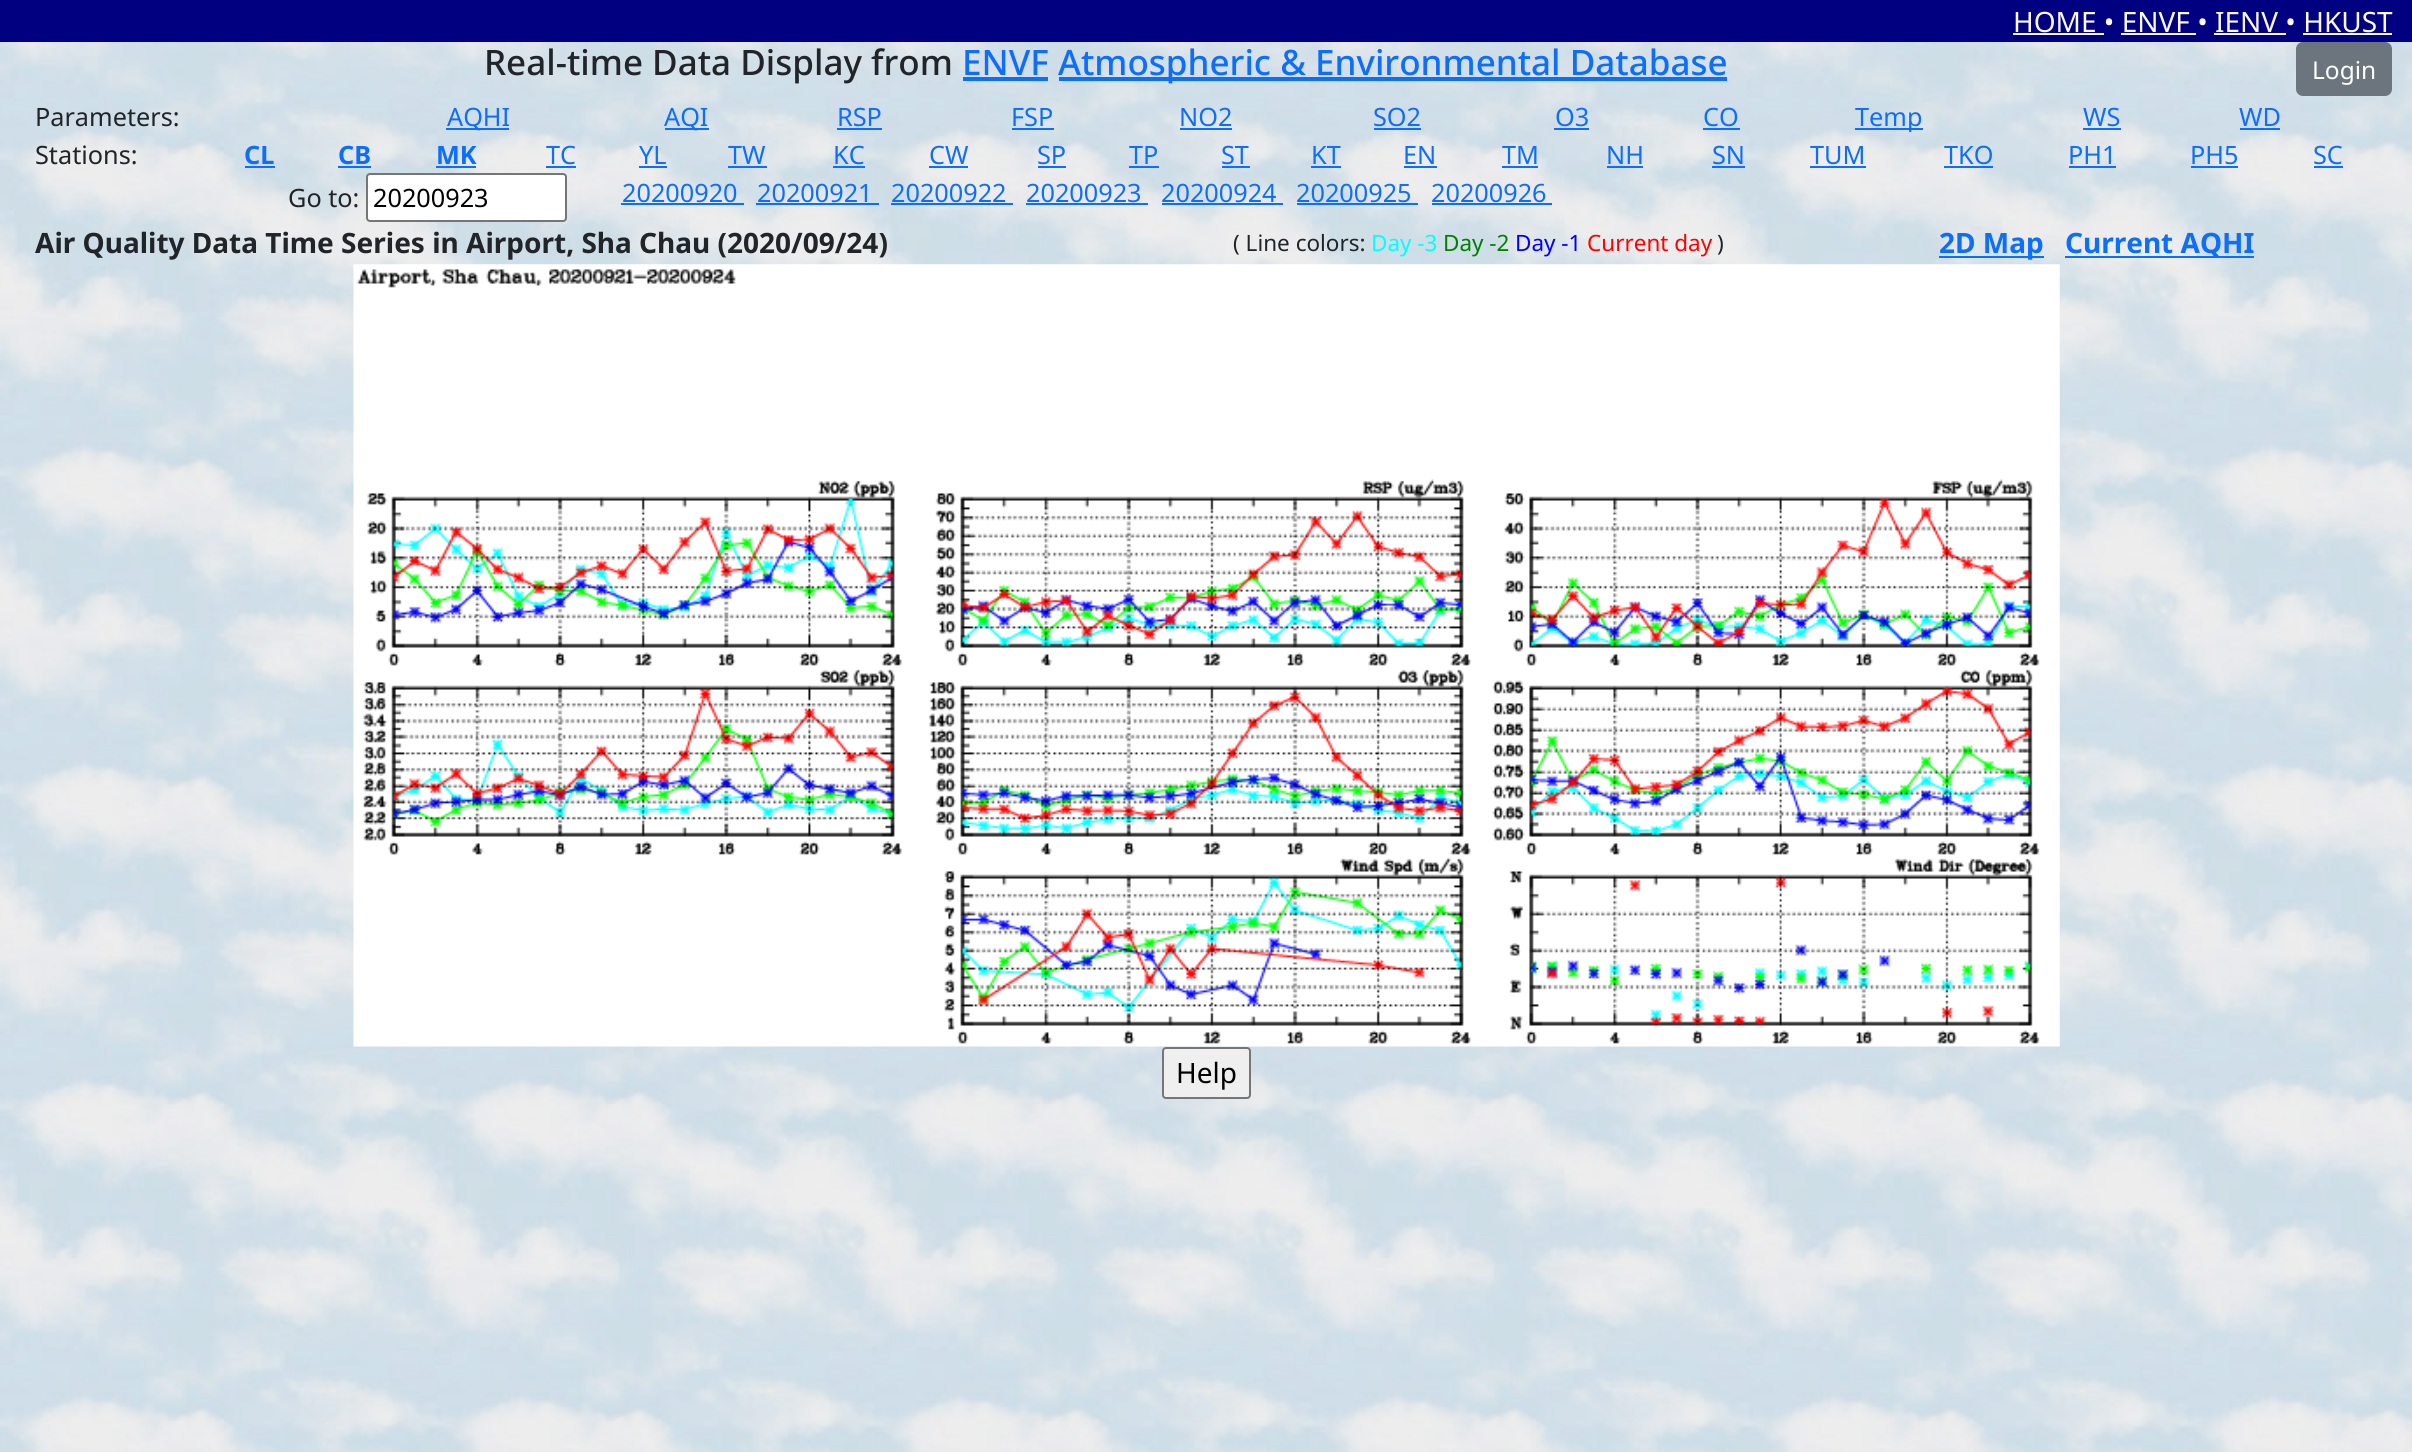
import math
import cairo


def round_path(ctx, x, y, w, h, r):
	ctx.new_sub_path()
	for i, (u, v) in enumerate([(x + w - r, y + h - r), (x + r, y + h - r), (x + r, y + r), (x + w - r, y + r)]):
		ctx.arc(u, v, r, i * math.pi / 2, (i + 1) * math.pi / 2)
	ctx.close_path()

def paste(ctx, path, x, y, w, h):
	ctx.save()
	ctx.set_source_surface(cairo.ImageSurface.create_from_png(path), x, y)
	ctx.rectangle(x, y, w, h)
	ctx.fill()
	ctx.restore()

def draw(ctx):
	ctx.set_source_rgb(1, 1, 1)
	ctx.paint()
	paste(ctx, 'media/1.png', 0, 42, 2412, 1410)
	ctx.set_source_rgb(0, 0, 0.502)
	ctx.rectangle(0, 0, 2412, 42)
	ctx.fill()
	ctx.select_font_face('Noto Sans')
	ctx.set_font_size(28)
	ctx.set_source_rgb(0.973, 0.976, 0.98)
	ctx.move_to(2013, 32)
	ctx.show_text('HOME • ENVF • IENV • HKUST')
	ctx.rectangle(2013, 33, 91, 2)
	ctx.rectangle(2121, 33, 75, 2)
	ctx.rectangle(2214, 33, 72, 2)
	ctx.rectangle(2303, 33, 89, 2)
	ctx.fill()
	ctx.select_font_face('Noto Sans Medium')
	ctx.set_font_size(35)
	ctx.set_source_rgb(0.129, 0.145, 0.161)
	ctx.move_to(484, 75)
	ctx.show_text('Real-time Data Display from')
	ctx.set_source_rgb(0.051, 0.431, 0.992)
	ctx.move_to(962, 75)
	ctx.show_text('ENVF')
	ctx.rectangle(963, 77, 85, 4)
	ctx.fill()
	ctx.rectangle(1059, 77, 668, 4)
	ctx.fill()
	ctx.move_to(1058, 75)
	ctx.show_text('Atmospheric & Environmental Database')
	ctx.set_source_rgb(0.424, 0.459, 0.49)
	round_path(ctx, 2297, 43, 94, 52, 6)
	ctx.fill_preserve()
	ctx.stroke()
	ctx.select_font_face('Noto Sans')
	ctx.set_font_size(24.5)
	ctx.set_source_rgb(1, 1, 1)
	ctx.move_to(2312, 79)
	ctx.show_text('Login')
	ctx.set_font_size(25.25)
	ctx.set_source_rgb(0.129, 0.145, 0.161)
	ctx.move_to(35, 126)
	ctx.show_text('Parameters:')
	ctx.set_source_rgb(0.051, 0.431, 0.992)
	ctx.rectangle(446, 128, 63, 2)
	ctx.fill()
	ctx.move_to(447, 126)
	ctx.show_text('AQHI')
	ctx.rectangle(665, 128, 44, 2)
	ctx.fill()
	ctx.move_to(664, 126)
	ctx.show_text('AQI')
	ctx.move_to(837, 126)
	ctx.show_text('RSP')
	ctx.rectangle(837, 128, 45, 2)
	ctx.fill()
	ctx.move_to(1011, 126)
	ctx.show_text('FSP')
	ctx.rectangle(1012, 128, 42, 2)
	ctx.fill()
	ctx.move_to(1179, 126)
	ctx.show_text('NO2')
	ctx.rectangle(1180, 128, 52, 2)
	ctx.fill()
	ctx.move_to(1373, 126)
	ctx.show_text('SO2')
	ctx.rectangle(1374, 128, 47, 2)
	ctx.fill()
	ctx.move_to(1555, 126)
	ctx.show_text('O3')
	ctx.rectangle(1554, 128, 35, 2)
	ctx.fill()
	ctx.move_to(1703, 126)
	ctx.show_text('CO')
	ctx.rectangle(1703, 128, 37, 2)
	ctx.fill()
	ctx.rectangle(1855, 128, 68, 2)
	ctx.fill()
	ctx.move_to(1855, 126)
	ctx.show_text('Temp')
	ctx.move_to(2083, 126)
	ctx.show_text('WS')
	ctx.rectangle(2083, 128, 38, 2)
	ctx.fill()
	ctx.move_to(2239, 126)
	ctx.show_text('WD')
	ctx.rectangle(2240, 128, 40, 2)
	ctx.fill()
	ctx.set_source_rgb(0.129, 0.145, 0.161)
	ctx.move_to(35, 164)
	ctx.show_text('Stations:')
	ctx.select_font_face('Noto Sans', cairo.FONT_SLANT_NORMAL, cairo.FONT_WEIGHT_BOLD)
	ctx.set_source_rgb(0.051, 0.431, 0.992)
	ctx.move_to(244, 164)
	ctx.show_text('CL')
	ctx.rectangle(245, 166, 30, 2)
	ctx.fill()
	ctx.move_to(338, 164)
	ctx.show_text('CB')
	ctx.rectangle(338, 166, 33, 2)
	ctx.fill()
	ctx.move_to(436, 164)
	ctx.show_text('MK')
	ctx.rectangle(436, 166, 40, 2)
	ctx.fill()
	ctx.select_font_face('Noto Sans')
	ctx.move_to(546, 164)
	ctx.show_text('TC')
	ctx.rectangle(546, 166, 30, 2)
	ctx.fill()
	ctx.move_to(639, 164)
	ctx.show_text('YL')
	ctx.rectangle(639, 166, 28, 2)
	ctx.fill()
	ctx.move_to(728, 164)
	ctx.show_text('TW')
	ctx.rectangle(728, 166, 39, 2)
	ctx.fill()
	ctx.move_to(833, 164)
	ctx.show_text('KC')
	ctx.rectangle(833, 166, 32, 2)
	ctx.fill()
	ctx.move_to(929, 164)
	ctx.show_text('CW')
	ctx.rectangle(929, 166, 39, 2)
	ctx.fill()
	ctx.move_to(1037, 164)
	ctx.show_text('SP')
	ctx.rectangle(1038, 166, 28, 2)
	ctx.fill()
	ctx.move_to(1129, 164)
	ctx.show_text('TP')
	ctx.rectangle(1129, 166, 30, 2)
	ctx.fill()
	ctx.move_to(1221, 164)
	ctx.show_text('ST')
	ctx.rectangle(1222, 166, 28, 2)
	ctx.fill()
	ctx.move_to(1311, 164)
	ctx.show_text('KT')
	ctx.rectangle(1311, 166, 30, 2)
	ctx.fill()
	ctx.move_to(1403, 164)
	ctx.show_text('EN')
	ctx.rectangle(1404, 166, 33, 2)
	ctx.fill()
	ctx.move_to(1502, 164)
	ctx.show_text('TM')
	ctx.rectangle(1502, 166, 36, 2)
	ctx.fill()
	ctx.move_to(1606, 164)
	ctx.show_text('NH')
	ctx.rectangle(1607, 166, 36, 2)
	ctx.fill()
	ctx.move_to(1712, 164)
	ctx.show_text('SN')
	ctx.rectangle(1712, 166, 33, 2)
	ctx.fill()
	ctx.move_to(1810, 164)
	ctx.show_text('TUM')
	ctx.rectangle(1810, 166, 56, 2)
	ctx.fill()
	ctx.move_to(1944, 164)
	ctx.show_text('TKO')
	ctx.rectangle(1944, 166, 49, 2)
	ctx.fill()
	ctx.move_to(2068, 164)
	ctx.show_text('PH1')
	ctx.rectangle(2069, 166, 47, 2)
	ctx.fill()
	ctx.move_to(2190, 164)
	ctx.show_text('PH5')
	ctx.rectangle(2191, 166, 47, 2)
	ctx.fill()
	ctx.move_to(2313, 164)
	ctx.show_text('SC')
	ctx.rectangle(2314, 166, 29, 2)
	ctx.fill()
	ctx.set_source_rgb(0.129, 0.145, 0.161)
	ctx.move_to(288, 207)
	ctx.show_text('Go to:')
	ctx.set_source_rgb(1, 1, 1)
	round_path(ctx, 367, 174, 199, 47, 3)
	ctx.fill_preserve()
	ctx.set_source_rgb(0.463, 0.463, 0.463)
	ctx.stroke()
	ctx.set_source_rgb(0, 0, 0)
	ctx.move_to(373, 207)
	ctx.show_text('20200923')
	ctx.set_source_rgb(0.051, 0.431, 0.992)
	ctx.move_to(622, 202)
	ctx.show_text('20200920')
	ctx.rectangle(621, 203, 123, 2)
	ctx.fill()
	ctx.move_to(757, 202)
	ctx.show_text('20200921')
	ctx.rectangle(756, 203, 123, 2)
	ctx.fill()
	ctx.move_to(891, 202)
	ctx.show_text('20200922')
	ctx.rectangle(891, 203, 122, 2)
	ctx.fill()
	ctx.move_to(1026, 202)
	ctx.show_text('20200923')
	ctx.rectangle(1026, 203, 122, 2)
	ctx.fill()
	ctx.move_to(1161, 202)
	ctx.show_text('20200924')
	ctx.rectangle(1162, 203, 121, 2)
	ctx.fill()
	ctx.move_to(1296, 202)
	ctx.show_text('20200925')
	ctx.rectangle(1297, 203, 121, 2)
	ctx.fill()
	ctx.move_to(1431, 202)
	ctx.show_text('20200926')
	ctx.rectangle(1432, 203, 120, 2)
	ctx.fill()
	ctx.select_font_face('Noto Sans', cairo.FONT_SLANT_NORMAL, cairo.FONT_WEIGHT_BOLD)
	ctx.set_font_size(28)
	ctx.set_source_rgb(0.129, 0.145, 0.161)
	ctx.move_to(35, 253)
	ctx.show_text('Air Quality Data Time Series in Airport, Sha Chau (2020/09/24)')
	ctx.select_font_face('Noto Sans')
	ctx.set_font_size(22.5)
	ctx.move_to(1233, 251)
	ctx.show_text('( Line colors:')
	ctx.set_source_rgb(0, 1, 1)
	ctx.move_to(1371, 251)
	ctx.show_text('Day -3')
	ctx.set_source_rgb(0, 0.502, 0)
	ctx.move_to(1443, 251)
	ctx.show_text('Day -2')
	ctx.set_source_rgb(0, 0, 1)
	ctx.move_to(1515, 251)
	ctx.show_text('Day -1')
	ctx.set_source_rgb(1, 0, 0)
	ctx.move_to(1587, 251)
	ctx.show_text('Current day')
	ctx.set_source_rgb(0.129, 0.145, 0.161)
	ctx.move_to(1717, 251)
	ctx.show_text(')')
	ctx.set_source_rgb(0.051, 0.431, 0.992)
	ctx.rectangle(1939, 256, 105, 2)
	ctx.fill()
	ctx.select_font_face('Noto Sans', cairo.FONT_SLANT_NORMAL, cairo.FONT_WEIGHT_BOLD)
	ctx.set_font_size(28)
	ctx.move_to(1939, 253)
	ctx.show_text('2D Map')
	ctx.rectangle(2065, 256, 189, 2)
	ctx.fill()
	ctx.move_to(2065, 253)
	ctx.show_text('Current AQHI')
	paste(ctx, 'media/2.png', 353, 264, 1707, 783)
	ctx.set_source_rgb(0.937, 0.937, 0.937)
	round_path(ctx, 1163, 1048, 87, 50, 3)
	ctx.fill_preserve()
	ctx.set_source_rgb(0.463, 0.463, 0.463)
	ctx.stroke()
	ctx.select_font_face('Noto Sans')
	ctx.set_source_rgb(0, 0, 0)
	ctx.move_to(1176, 1083)
	ctx.show_text('Help')


surface = cairo.ImageSurface(cairo.FORMAT_RGB24, 2412, 1452)
ctx = cairo.Context(surface)
options = cairo.FontOptions()
options.set_hint_metrics(cairo.HINT_METRICS_OFF)
options.set_hint_style(cairo.HINT_STYLE_NONE)
ctx.set_font_options(options)
ctx.set_miter_limit(4)
draw(ctx)
surface.write_to_png('image.png')
